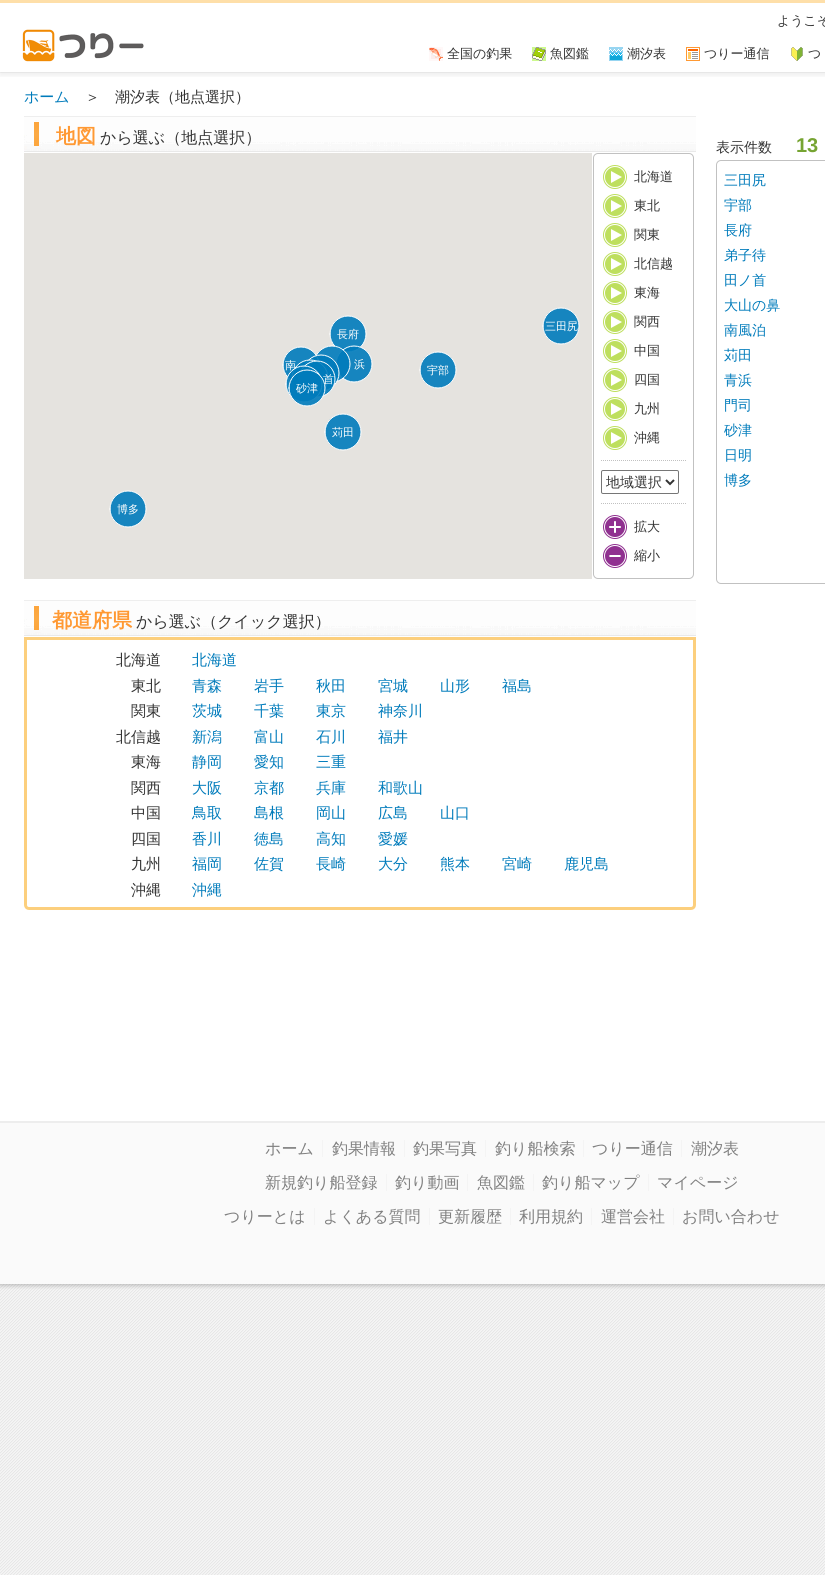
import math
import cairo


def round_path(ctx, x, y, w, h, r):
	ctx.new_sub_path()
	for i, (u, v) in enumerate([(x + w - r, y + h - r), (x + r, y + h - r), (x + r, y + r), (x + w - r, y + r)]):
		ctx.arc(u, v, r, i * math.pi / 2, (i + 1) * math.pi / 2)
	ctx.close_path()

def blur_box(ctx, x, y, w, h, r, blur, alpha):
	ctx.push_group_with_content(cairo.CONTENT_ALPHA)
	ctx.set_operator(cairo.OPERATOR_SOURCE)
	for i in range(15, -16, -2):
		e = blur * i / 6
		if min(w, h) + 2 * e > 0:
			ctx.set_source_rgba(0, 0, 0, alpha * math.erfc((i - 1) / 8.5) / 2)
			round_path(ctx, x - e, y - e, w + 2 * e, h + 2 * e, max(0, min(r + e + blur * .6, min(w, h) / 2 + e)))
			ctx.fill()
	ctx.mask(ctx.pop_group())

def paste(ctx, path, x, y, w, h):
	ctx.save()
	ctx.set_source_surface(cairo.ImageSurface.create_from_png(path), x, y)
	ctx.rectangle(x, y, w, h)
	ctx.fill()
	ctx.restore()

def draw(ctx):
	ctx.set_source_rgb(0.969, 0.969, 0.969)
	ctx.paint()
	paste(ctx, 'media/1.png', 0, 1284, 825, 291)
	ctx.set_source_rgb(0, 0, 0)
	blur_box(ctx, 0, 2, 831, 1284, 0, 2, 0.2)
	ctx.set_source_rgb(1, 1, 1)
	ctx.rectangle(0, 3, 825, 1118)
	ctx.fill()
	ctx.set_source_rgb(0.996, 0.875, 0.663)
	ctx.rectangle(0, 0, 825, 3)
	ctx.fill()
	ctx.rectangle(-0.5, -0.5, 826, 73)
	ctx.set_source_rgb(0.961, 0.961, 0.961)
	ctx.set_line_width(1)
	ctx.stroke()
	ctx.save()
	ctx.rectangle(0, 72, 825, 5)
	ctx.clip()
	ctx.set_source_rgb(0, 0, 0)
	blur_box(ctx, 0, 2, 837, 72, 0, 4, 0.1)
	ctx.restore()
	paste(ctx, 'media/2.png', 22, 29, 122, 33)
	ctx.select_font_face('WenQuanYi Zen Hei Medium')
	ctx.set_font_size(13)
	ctx.set_source_rgb(0.2, 0.2, 0.2)
	ctx.move_to(777, 25)
	ctx.show_text('ようこそ')
	paste(ctx, 'media/3.png', 429, 47, 14, 14)
	ctx.move_to(447, 58)
	ctx.show_text('全国の釣果')
	paste(ctx, 'media/4.png', 532, 47, 14, 14)
	ctx.move_to(550, 58)
	ctx.show_text('魚図鑑')
	paste(ctx, 'media/5.png', 609, 47, 14, 14)
	ctx.move_to(627, 58)
	ctx.show_text('潮汐表')
	paste(ctx, 'media/6.png', 686, 47, 14, 14)
	ctx.move_to(704, 58)
	ctx.show_text('つりー通信')
	paste(ctx, 'media/7.png', 791, 47, 12, 14)
	ctx.move_to(808, 58)
	ctx.show_text('つ')
	ctx.set_font_size(15)
	ctx.set_source_rgb(0, 0.482, 0.733)
	ctx.move_to(24, 102)
	ctx.show_text('ホーム')
	ctx.set_source_rgb(0.2, 0.2, 0.2)
	ctx.move_to(85, 102)
	ctx.show_text('＞　潮汐表（地点選択）')
	paste(ctx, 'media/8.png', 24, 116, 672, 36)
	ctx.select_font_face('WenQuanYi Zen Hei', cairo.FONT_SLANT_NORMAL, cairo.FONT_WEIGHT_BOLD)
	ctx.set_font_size(20)
	ctx.set_source_rgb(1, 0.6, 0.2)
	ctx.move_to(56, 143)
	ctx.show_text('地図')
	ctx.select_font_face('WenQuanYi Zen Hei Medium')
	ctx.set_font_size(16)
	ctx.set_source_rgb(0.2, 0.2, 0.2)
	ctx.move_to(100, 143)
	ctx.show_text('から選ぶ（地点選択）')
	ctx.set_source_rgb(0.898, 0.89, 0.875)
	ctx.rectangle(24, 153, 568, 426)
	ctx.fill()
	paste(ctx, 'media/9.png', 329, 315, 38, 38)
	paste(ctx, 'media/9.png', 542, 307, 38, 38)
	ctx.set_font_size(11)
	ctx.set_source_rgb(1, 1, 1)
	ctx.move_to(545, 330)
	ctx.show_text('三田尻')
	ctx.move_to(337, 338)
	ctx.show_text('長府')
	paste(ctx, 'media/12.png', 335, 345, 38, 38)
	paste(ctx, 'media/11.png', 313, 345, 38, 38)
	paste(ctx, 'media/10.png', 282, 346, 38, 38)
	paste(ctx, 'media/9.png', 419, 351, 38, 38)
	ctx.move_to(285, 369)
	ctx.show_text('南')
	paste(ctx, 'media/13.png', 302, 354, 38, 38)
	ctx.move_to(354, 368)
	ctx.show_text('浜')
	paste(ctx, 'media/14.png', 291, 359, 38, 38)
	paste(ctx, 'media/15.png', 298, 360, 38, 38)
	ctx.move_to(427, 374)
	ctx.show_text('宇部')
	ctx.move_to(323, 383)
	ctx.show_text('首')
	paste(ctx, 'media/16.png', 285, 365, 38, 38)
	paste(ctx, 'media/17.png', 288, 369, 38, 38)
	ctx.move_to(296, 392)
	ctx.show_text('砂津')
	paste(ctx, 'media/9.png', 324, 413, 38, 38)
	ctx.move_to(332, 436)
	ctx.show_text('苅田')
	paste(ctx, 'media/9.png', 109, 490, 38, 38)
	ctx.move_to(117, 513)
	ctx.show_text('博多')
	round_path(ctx, 593.5, 153.5, 100, 425, 4.5)
	ctx.set_source_rgb(0.757, 0.757, 0.757)
	ctx.stroke()
	paste(ctx, 'media/18.png', 603, 165, 24, 24)
	ctx.set_font_size(13)
	ctx.set_source_rgb(0.2, 0.2, 0.2)
	ctx.move_to(634, 181)
	ctx.show_text('北海道')
	paste(ctx, 'media/18.png', 603, 194, 24, 24)
	ctx.move_to(634, 210)
	ctx.show_text('東北')
	paste(ctx, 'media/18.png', 603, 223, 24, 24)
	ctx.move_to(634, 239)
	ctx.show_text('関東')
	paste(ctx, 'media/18.png', 603, 252, 24, 24)
	ctx.move_to(634, 268)
	ctx.show_text('北信越')
	paste(ctx, 'media/18.png', 603, 281, 24, 24)
	ctx.move_to(634, 297)
	ctx.show_text('東海')
	paste(ctx, 'media/18.png', 603, 310, 24, 24)
	ctx.move_to(634, 326)
	ctx.show_text('関西')
	paste(ctx, 'media/18.png', 603, 339, 24, 24)
	ctx.move_to(634, 355)
	ctx.show_text('中国')
	paste(ctx, 'media/18.png', 603, 368, 24, 24)
	ctx.move_to(634, 384)
	ctx.show_text('四国')
	paste(ctx, 'media/18.png', 603, 397, 24, 24)
	ctx.move_to(634, 413)
	ctx.show_text('九州')
	paste(ctx, 'media/18.png', 603, 426, 24, 24)
	ctx.move_to(634, 442)
	ctx.show_text('沖縄')
	ctx.new_path()
	ctx.move_to(601, 460.5)
	ctx.line_to(686, 460.5)
	ctx.set_source_rgb(0.757, 0.757, 0.757)
	ctx.set_dash([1, 1])
	ctx.stroke()
	round_path(ctx, 601.5, 470.5, 77, 23, 1.5)
	ctx.set_source_rgb(0.463, 0.463, 0.463)
	ctx.set_dash([])
	ctx.stroke()
	ctx.new_path()
	ctx.move_to(666, 480)
	ctx.line_to(670, 484)
	ctx.line_to(674, 480)
	ctx.set_source_rgb(0.2, 0.2, 0.2)
	ctx.set_line_width(2)
	ctx.stroke()
	ctx.set_font_size(14)
	ctx.move_to(606, 487)
	ctx.show_text('地域選択')
	ctx.new_path()
	ctx.move_to(601, 503.5)
	ctx.line_to(686, 503.5)
	ctx.set_source_rgb(0.757, 0.757, 0.757)
	ctx.set_line_width(1)
	ctx.set_dash([1, 1])
	ctx.stroke()
	paste(ctx, 'media/19.png', 603, 515, 24, 24)
	ctx.set_font_size(13)
	ctx.set_source_rgb(0.2, 0.2, 0.2)
	ctx.move_to(634, 531)
	ctx.show_text('拡大')
	paste(ctx, 'media/20.png', 603, 544, 24, 24)
	ctx.move_to(634, 560)
	ctx.show_text('縮小')
	paste(ctx, 'media/8.png', 24, 600, 672, 36)
	ctx.select_font_face('WenQuanYi Zen Hei', cairo.FONT_SLANT_NORMAL, cairo.FONT_WEIGHT_BOLD)
	ctx.set_font_size(20)
	ctx.set_source_rgb(1, 0.6, 0.2)
	ctx.move_to(52, 627)
	ctx.show_text('都道府県')
	ctx.select_font_face('WenQuanYi Zen Hei Medium')
	ctx.set_font_size(16)
	ctx.set_source_rgb(0.2, 0.2, 0.2)
	ctx.move_to(136, 627)
	ctx.show_text('から選ぶ（クイック選択）')
	ctx.new_path()
	ctx.move_to(25.5, 638.5)
	ctx.line_to(694.5, 638.5)
	ctx.line_to(694.5, 905)
	ctx.curve_to(694.5, 907, 693, 908.5, 691, 908.5)
	ctx.line_to(29, 908.5)
	ctx.curve_to(27, 908.5, 25.5, 907, 25.5, 905)
	ctx.close_path()
	ctx.set_source_rgb(0.988, 0.812, 0.49)
	ctx.set_line_width(3)
	ctx.set_dash([])
	ctx.stroke()
	ctx.set_font_size(15)
	ctx.set_source_rgb(0.2, 0.2, 0.2)
	ctx.move_to(116, 665)
	ctx.show_text('北海道')
	ctx.set_source_rgb(0, 0.482, 0.733)
	ctx.move_to(192, 665)
	ctx.show_text('北海道')
	ctx.set_source_rgb(0.2, 0.2, 0.2)
	ctx.move_to(131, 691)
	ctx.show_text('東北')
	ctx.set_source_rgb(0, 0.482, 0.733)
	for x, y, s in [
		(192, 691, '青森'),
		(254, 691, '岩手'),
		(316, 691, '秋田'),
		(378, 691, '宮城'),
		(440, 691, '山形'),
		(502, 691, '福島'),
	]:
		ctx.move_to(x, y)
		ctx.show_text(s)
	ctx.set_source_rgb(0.2, 0.2, 0.2)
	ctx.move_to(131, 716)
	ctx.show_text('関東')
	ctx.set_source_rgb(0, 0.482, 0.733)
	for x, y, s in [
		(192, 716, '茨城'),
		(254, 716, '千葉'),
		(316, 716, '東京'),
		(378, 716, '神奈川'),
	]:
		ctx.move_to(x, y)
		ctx.show_text(s)
	ctx.set_source_rgb(0.2, 0.2, 0.2)
	ctx.move_to(116, 742)
	ctx.show_text('北信越')
	ctx.set_source_rgb(0, 0.482, 0.733)
	for x, y, s in [
		(192, 742, '新潟'),
		(254, 742, '富山'),
		(316, 742, '石川'),
		(378, 742, '福井'),
	]:
		ctx.move_to(x, y)
		ctx.show_text(s)
	ctx.set_source_rgb(0.2, 0.2, 0.2)
	ctx.move_to(131, 767)
	ctx.show_text('東海')
	ctx.set_source_rgb(0, 0.482, 0.733)
	for x, y, s in [
		(192, 767, '静岡'),
		(254, 767, '愛知'),
		(316, 767, '三重'),
	]:
		ctx.move_to(x, y)
		ctx.show_text(s)
	ctx.set_source_rgb(0.2, 0.2, 0.2)
	ctx.move_to(131, 793)
	ctx.show_text('関西')
	ctx.set_source_rgb(0, 0.482, 0.733)
	for x, y, s in [
		(192, 793, '大阪'),
		(254, 793, '京都'),
		(316, 793, '兵庫'),
		(378, 793, '和歌山'),
	]:
		ctx.move_to(x, y)
		ctx.show_text(s)
	ctx.set_source_rgb(0.2, 0.2, 0.2)
	ctx.move_to(131, 818)
	ctx.show_text('中国')
	ctx.set_source_rgb(0, 0.482, 0.733)
	for x, y, s in [
		(192, 818, '鳥取'),
		(254, 818, '島根'),
		(316, 818, '岡山'),
		(378, 818, '広島'),
		(440, 818, '山口'),
	]:
		ctx.move_to(x, y)
		ctx.show_text(s)
	ctx.set_source_rgb(0.2, 0.2, 0.2)
	ctx.move_to(131, 844)
	ctx.show_text('四国')
	ctx.set_source_rgb(0, 0.482, 0.733)
	for x, y, s in [
		(192, 844, '香川'),
		(254, 844, '徳島'),
		(316, 844, '高知'),
		(378, 844, '愛媛'),
	]:
		ctx.move_to(x, y)
		ctx.show_text(s)
	ctx.set_source_rgb(0.2, 0.2, 0.2)
	ctx.move_to(131, 869)
	ctx.show_text('九州')
	ctx.set_source_rgb(0, 0.482, 0.733)
	for x, y, s in [
		(192, 869, '福岡'),
		(254, 869, '佐賀'),
		(316, 869, '長崎'),
		(378, 869, '大分'),
		(440, 869, '熊本'),
		(502, 869, '宮崎'),
		(564, 869, '鹿児島'),
	]:
		ctx.move_to(x, y)
		ctx.show_text(s)
	ctx.set_source_rgb(0.2, 0.2, 0.2)
	ctx.move_to(131, 895)
	ctx.show_text('沖縄')
	ctx.set_source_rgb(0, 0.482, 0.733)
	ctx.move_to(192, 895)
	ctx.show_text('沖縄')
	ctx.set_font_size(14)
	ctx.set_source_rgb(0.2, 0.2, 0.2)
	ctx.move_to(716, 152)
	ctx.show_text('表示件数')
	ctx.select_font_face('Liberation Sans', cairo.FONT_SLANT_NORMAL, cairo.FONT_WEIGHT_BOLD)
	ctx.set_font_size(20)
	ctx.set_source_rgb(0.463, 0.643, 0.196)
	ctx.move_to(796, 152)
	ctx.show_text('13')
	round_path(ctx, 716.5, 160.5, 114, 423, 4.5)
	ctx.set_source_rgb(0.757, 0.757, 0.757)
	ctx.set_line_width(1)
	ctx.stroke()
	ctx.select_font_face('WenQuanYi Zen Hei Medium')
	ctx.set_font_size(14)
	ctx.set_source_rgb(0, 0.482, 0.733)
	for x, y, s in [
		(724, 185, '三田尻'),
		(724, 210, '宇部'),
		(724, 235, '長府'),
		(724, 260, '弟子待'),
		(724, 285, '田ノ首'),
		(724, 310, '大山の鼻'),
		(724, 335, '南風泊'),
		(724, 360, '苅田'),
		(724, 385, '青浜'),
		(724, 410, '門司'),
		(724, 435, '砂津'),
		(724, 460, '日明'),
		(724, 485, '博多'),
	]:
		ctx.move_to(x, y)
		ctx.show_text(s)
	ctx.set_source_rgb(0.98, 0.98, 0.98)
	ctx.rectangle(0, 1123, 825, 161)
	ctx.fill()
	ctx.set_source_rgb(0.929, 0.929, 0.929)
	ctx.rectangle(0, 1121, 825, 2)
	ctx.fill()
	ctx.set_font_size(16)
	ctx.set_source_rgb(0.502, 0.502, 0.502)
	ctx.move_to(265, 1154)
	ctx.show_text('ホーム')
	ctx.set_source_rgb(0.957, 0.957, 0.957)
	ctx.rectangle(322, 1140, 1, 17)
	ctx.fill()
	ctx.set_source_rgb(0.502, 0.502, 0.502)
	ctx.move_to(332, 1154)
	ctx.show_text('釣果情報')
	ctx.set_source_rgb(0.957, 0.957, 0.957)
	ctx.rectangle(404, 1140, 1, 17)
	ctx.fill()
	ctx.set_source_rgb(0.502, 0.502, 0.502)
	ctx.move_to(413, 1154)
	ctx.show_text('釣果写真')
	ctx.set_source_rgb(0.957, 0.957, 0.957)
	ctx.rectangle(485, 1140, 1, 17)
	ctx.fill()
	ctx.set_source_rgb(0.502, 0.502, 0.502)
	ctx.move_to(495, 1154)
	ctx.show_text('釣り船検索')
	ctx.set_source_rgb(0.957, 0.957, 0.957)
	ctx.rectangle(583, 1140, 1, 17)
	ctx.fill()
	ctx.set_source_rgb(0.502, 0.502, 0.502)
	ctx.move_to(592, 1154)
	ctx.show_text('つりー通信')
	ctx.set_source_rgb(0.957, 0.957, 0.957)
	ctx.rectangle(681, 1140, 1, 17)
	ctx.fill()
	ctx.set_source_rgb(0.502, 0.502, 0.502)
	ctx.move_to(691, 1154)
	ctx.show_text('潮汐表')
	ctx.move_to(265, 1188)
	ctx.show_text('新規釣り船登録')
	ctx.set_source_rgb(0.957, 0.957, 0.957)
	ctx.rectangle(386, 1174, 1, 17)
	ctx.fill()
	ctx.set_source_rgb(0.502, 0.502, 0.502)
	ctx.move_to(395, 1188)
	ctx.show_text('釣り動画')
	ctx.set_source_rgb(0.957, 0.957, 0.957)
	ctx.rectangle(467, 1174, 1, 17)
	ctx.fill()
	ctx.set_source_rgb(0.502, 0.502, 0.502)
	ctx.move_to(477, 1188)
	ctx.show_text('魚図鑑')
	ctx.set_source_rgb(0.957, 0.957, 0.957)
	ctx.rectangle(533, 1174, 1, 17)
	ctx.fill()
	ctx.set_source_rgb(0.502, 0.502, 0.502)
	ctx.move_to(542, 1188)
	ctx.show_text('釣り船マップ')
	ctx.set_source_rgb(0.957, 0.957, 0.957)
	ctx.rectangle(648, 1174, 1, 17)
	ctx.fill()
	ctx.set_source_rgb(0.502, 0.502, 0.502)
	ctx.move_to(657, 1188)
	ctx.show_text('マイページ')
	ctx.move_to(224, 1222)
	ctx.show_text('つりーとは')
	ctx.set_source_rgb(0.957, 0.957, 0.957)
	ctx.rectangle(314, 1208, 1, 17)
	ctx.fill()
	ctx.set_source_rgb(0.502, 0.502, 0.502)
	ctx.move_to(323, 1222)
	ctx.show_text('よくある質問')
	ctx.set_source_rgb(0.957, 0.957, 0.957)
	ctx.rectangle(429, 1208, 1, 17)
	ctx.fill()
	ctx.set_source_rgb(0.502, 0.502, 0.502)
	ctx.move_to(438, 1222)
	ctx.show_text('更新履歴')
	ctx.set_source_rgb(0.957, 0.957, 0.957)
	ctx.rectangle(510, 1208, 1, 17)
	ctx.fill()
	ctx.set_source_rgb(0.502, 0.502, 0.502)
	ctx.move_to(519, 1222)
	ctx.show_text('利用規約')
	ctx.set_source_rgb(0.957, 0.957, 0.957)
	ctx.rectangle(591, 1208, 1, 17)
	ctx.fill()
	ctx.set_source_rgb(0.502, 0.502, 0.502)
	ctx.move_to(601, 1222)
	ctx.show_text('運営会社')
	ctx.set_source_rgb(0.957, 0.957, 0.957)
	ctx.rectangle(673, 1208, 1, 17)
	ctx.fill()
	ctx.set_source_rgb(0.502, 0.502, 0.502)
	ctx.move_to(682, 1222)
	ctx.show_text('お問い合わせ')


surface = cairo.ImageSurface(cairo.FORMAT_RGB24, 825, 1575)
ctx = cairo.Context(surface)
options = cairo.FontOptions()
options.set_hint_metrics(cairo.HINT_METRICS_OFF)
options.set_hint_style(cairo.HINT_STYLE_NONE)
ctx.set_font_options(options)
ctx.set_miter_limit(4)
draw(ctx)
surface.write_to_png('image.png')
